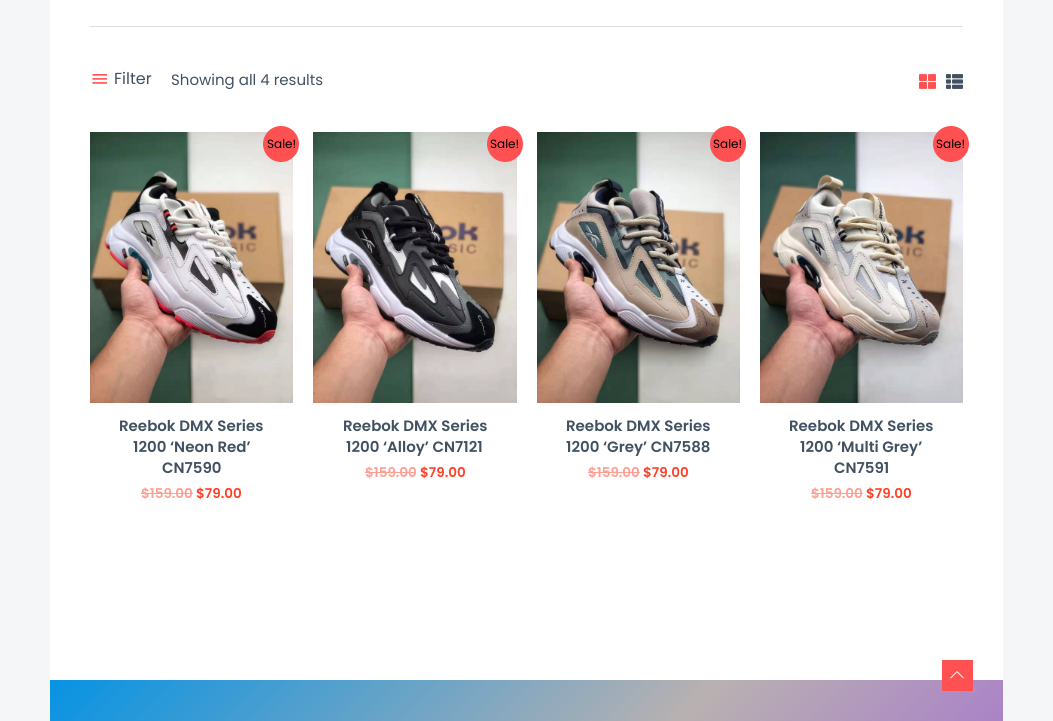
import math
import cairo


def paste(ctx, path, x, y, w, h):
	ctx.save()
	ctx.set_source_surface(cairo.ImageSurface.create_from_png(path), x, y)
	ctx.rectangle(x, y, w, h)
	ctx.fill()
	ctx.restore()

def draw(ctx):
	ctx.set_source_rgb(0.957, 0.961, 0.965)
	ctx.paint()
	ctx.set_source_rgb(1, 1, 1)
	ctx.rectangle(50, 0, 953, 680)
	ctx.fill()
	ctx.set_source_rgb(0.867, 0.867, 0.867)
	ctx.rectangle(90, 26, 873, 1)
	ctx.fill()
	paste(ctx, 'media/1.png', 92, 74, 16, 10)
	ctx.select_font_face('Poppins')
	ctx.set_font_size(16)
	ctx.set_source_rgb(0.255, 0.318, 0.38)
	ctx.move_to(114, 84)
	ctx.show_text('Filter')
	ctx.set_font_size(15)
	ctx.move_to(171, 85)
	ctx.show_text('Showing all 4 results')
	paste(ctx, 'media/2.png', 919, 74, 17, 15)
	paste(ctx, 'media/3.png', 946, 74, 17, 15)
	paste(ctx, 'media/4.png', 90, 132, 203, 271)
	ctx.set_source_rgb(1, 0.318, 0.318)
	ctx.arc(281, 144, 18, 0, 2 * math.pi)
	ctx.fill()
	ctx.set_font_size(12)
	ctx.set_source_rgb(0, 0, 0)
	ctx.move_to(267, 148)
	ctx.show_text('Sale!')
	ctx.select_font_face('Poppins SemiBold')
	ctx.set_font_size(15)
	ctx.set_source_rgb(0.255, 0.318, 0.38)
	for x, y, s in [
		(119, 431, 'Reebok DMX Series'),
		(133, 452, '1200 ‘Neon Red’'),
		(162, 473, 'CN7590'),
	]:
		ctx.move_to(x, y)
		ctx.show_text(s)
	ctx.set_font_size(13.5)
	ctx.set_source_rgb(1, 0.624, 0.576)
	ctx.move_to(141, 498)
	ctx.show_text('$159.00')
	ctx.rectangle(141, 493, 52, 1)
	ctx.fill()
	ctx.set_source_rgb(1, 0.247, 0.149)
	ctx.move_to(196, 498)
	ctx.show_text('$79.00')
	paste(ctx, 'media/5.png', 313, 132, 204, 271)
	ctx.set_source_rgb(1, 0.318, 0.318)
	ctx.arc(505, 144, 18, 0, 2 * math.pi)
	ctx.fill()
	ctx.select_font_face('Poppins')
	ctx.set_font_size(12)
	ctx.set_source_rgb(0, 0, 0)
	ctx.move_to(490, 148)
	ctx.show_text('Sale!')
	ctx.select_font_face('Poppins SemiBold')
	ctx.set_font_size(15)
	ctx.set_source_rgb(0.255, 0.318, 0.38)
	ctx.move_to(343, 431)
	ctx.show_text('Reebok DMX Series')
	ctx.move_to(346, 452)
	ctx.show_text('1200 ‘Alloy’ CN7121')
	ctx.set_font_size(13.5)
	ctx.set_source_rgb(1, 0.624, 0.576)
	ctx.move_to(365, 477)
	ctx.show_text('$159.00')
	ctx.rectangle(365, 472, 51, 1)
	ctx.fill()
	ctx.set_source_rgb(1, 0.247, 0.149)
	ctx.move_to(420, 477)
	ctx.show_text('$79.00')
	paste(ctx, 'media/6.png', 537, 132, 203, 271)
	ctx.set_source_rgb(1, 0.318, 0.318)
	ctx.arc(728, 144, 18, 0, 2 * math.pi)
	ctx.fill()
	ctx.select_font_face('Poppins')
	ctx.set_font_size(12)
	ctx.set_source_rgb(0, 0, 0)
	ctx.move_to(713, 148)
	ctx.show_text('Sale!')
	ctx.select_font_face('Poppins SemiBold')
	ctx.set_font_size(15)
	ctx.set_source_rgb(0.255, 0.318, 0.38)
	ctx.move_to(566, 431)
	ctx.show_text('Reebok DMX Series')
	ctx.move_to(566, 452)
	ctx.show_text('1200 ‘Grey’ CN7588')
	ctx.set_font_size(13.5)
	ctx.set_source_rgb(1, 0.624, 0.576)
	ctx.move_to(588, 477)
	ctx.show_text('$159.00')
	ctx.rectangle(588, 472, 52, 1)
	ctx.fill()
	ctx.set_source_rgb(1, 0.247, 0.149)
	ctx.move_to(643, 477)
	ctx.show_text('$79.00')
	paste(ctx, 'media/7.png', 760, 132, 203, 271)
	ctx.set_source_rgb(1, 0.318, 0.318)
	ctx.arc(951, 144, 18, 0, 2 * math.pi)
	ctx.fill()
	ctx.select_font_face('Poppins')
	ctx.set_font_size(12)
	ctx.set_source_rgb(0, 0, 0)
	ctx.move_to(936, 148)
	ctx.show_text('Sale!')
	ctx.select_font_face('Poppins SemiBold')
	ctx.set_font_size(15)
	ctx.set_source_rgb(0.255, 0.318, 0.38)
	for x, y, s in [
		(789, 431, 'Reebok DMX Series'),
		(800, 452, '1200 ‘Multi Grey’'),
		(834, 473, 'CN7591'),
	]:
		ctx.move_to(x, y)
		ctx.show_text(s)
	ctx.set_font_size(13.5)
	ctx.set_source_rgb(1, 0.624, 0.576)
	ctx.move_to(811, 498)
	ctx.show_text('$159.00')
	ctx.rectangle(811, 493, 52, 1)
	ctx.fill()
	ctx.set_source_rgb(1, 0.247, 0.149)
	ctx.move_to(866, 498)
	ctx.show_text('$79.00')
	gradient = cairo.LinearGradient(192, 538, 861, 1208)
	gradient.add_color_stop_rgba(0, 0.024, 0.576, 0.89, 1)
	gradient.add_color_stop_rgba(0.5, 0.725, 0.694, 0.694, 1)
	gradient.add_color_stop_rgba(1, 0.608, 0.318, 0.878, 1)
	ctx.set_source(gradient)
	ctx.rectangle(50, 680, 953, 41)
	ctx.fill()
	ctx.set_source_rgb(1, 0.318, 0.318)
	ctx.rectangle(942, 660, 31, 31)
	ctx.fill()
	paste(ctx, 'media/8.png', 950, 671, 14, 8)


surface = cairo.ImageSurface(cairo.FORMAT_RGB24, 1053, 721)
ctx = cairo.Context(surface)
options = cairo.FontOptions()
options.set_hint_metrics(cairo.HINT_METRICS_OFF)
options.set_hint_style(cairo.HINT_STYLE_NONE)
ctx.set_font_options(options)
ctx.set_miter_limit(4)
draw(ctx)
surface.write_to_png('image.png')
